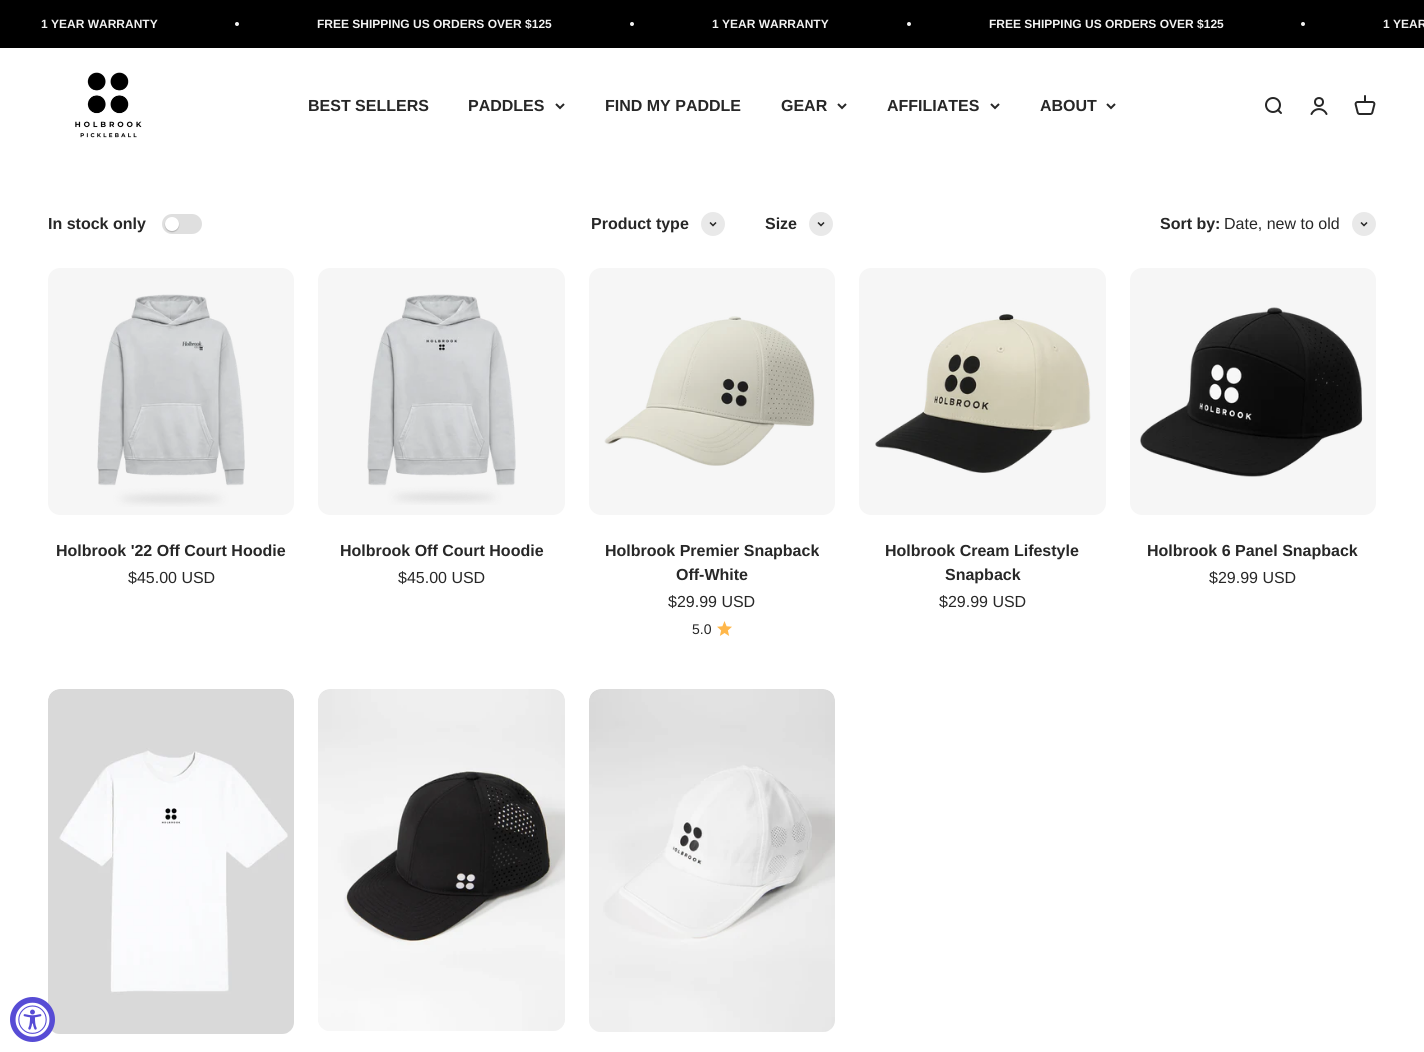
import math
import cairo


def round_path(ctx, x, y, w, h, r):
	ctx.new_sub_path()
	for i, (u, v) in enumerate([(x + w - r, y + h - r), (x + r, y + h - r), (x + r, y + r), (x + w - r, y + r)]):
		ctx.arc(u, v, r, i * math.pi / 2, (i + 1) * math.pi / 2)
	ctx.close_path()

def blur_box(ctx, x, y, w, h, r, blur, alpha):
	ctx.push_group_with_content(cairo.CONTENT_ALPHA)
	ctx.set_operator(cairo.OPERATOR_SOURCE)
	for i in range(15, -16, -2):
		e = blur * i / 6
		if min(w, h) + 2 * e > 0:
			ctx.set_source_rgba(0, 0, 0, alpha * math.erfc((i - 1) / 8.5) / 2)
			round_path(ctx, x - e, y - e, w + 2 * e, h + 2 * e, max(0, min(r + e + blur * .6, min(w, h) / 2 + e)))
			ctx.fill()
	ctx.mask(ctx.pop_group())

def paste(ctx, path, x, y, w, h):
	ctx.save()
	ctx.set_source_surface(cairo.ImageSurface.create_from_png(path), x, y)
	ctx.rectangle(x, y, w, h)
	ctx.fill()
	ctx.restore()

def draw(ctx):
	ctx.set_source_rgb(1, 1, 1)
	ctx.paint()
	ctx.set_source_rgb(0, 0, 0)
	ctx.rectangle(0, 0, 1424, 48)
	ctx.fill()
	ctx.select_font_face('Liberation Sans', cairo.FONT_SLANT_NORMAL, cairo.FONT_WEIGHT_BOLD)
	ctx.set_font_size(12)
	ctx.set_source_rgb(0.949, 0.949, 0.949)
	ctx.move_to(41, 28)
	ctx.show_text('1 YEAR WARRANTY')
	ctx.new_path()
	ctx.arc(237, 24, 2, 0, 2 * math.pi)
	ctx.fill()
	ctx.move_to(317, 28)
	ctx.show_text('FREE SHIPPING US ORDERS OVER $125')
	ctx.new_path()
	ctx.arc(632, 24, 2, 0, 2 * math.pi)
	ctx.fill()
	ctx.move_to(712, 28)
	ctx.show_text('1 YEAR WARRANTY')
	ctx.new_path()
	ctx.arc(909, 24, 2, 0, 2 * math.pi)
	ctx.fill()
	ctx.move_to(989, 28)
	ctx.show_text('FREE SHIPPING US ORDERS OVER $125')
	ctx.new_path()
	ctx.arc(1303, 24, 2, 0, 2 * math.pi)
	ctx.fill()
	ctx.move_to(1383, 28)
	ctx.show_text('1 YEAR')
	paste(ctx, 'media/1.png', 75, 72, 67, 66)
	ctx.set_font_size(16)
	ctx.set_source_rgb(0.153, 0.153, 0.153)
	ctx.move_to(308, 111)
	ctx.show_text('BEST SELLERS')
	ctx.move_to(468, 111)
	ctx.show_text('PADDLES')
	ctx.new_path()
	ctx.move_to(556, 104)
	ctx.line_to(560, 108)
	ctx.line_to(564, 104)
	ctx.stroke()
	ctx.move_to(605, 111)
	ctx.show_text('FIND MY PADDLE')
	ctx.move_to(781, 111)
	ctx.show_text('GEAR')
	ctx.new_path()
	ctx.move_to(838, 104)
	ctx.line_to(842, 108)
	ctx.line_to(846, 104)
	ctx.stroke()
	ctx.move_to(887, 111)
	ctx.show_text('AFFILIATES')
	ctx.new_path()
	ctx.move_to(991, 104)
	ctx.line_to(995, 108)
	ctx.line_to(999, 104)
	ctx.stroke()
	ctx.move_to(1040, 111)
	ctx.show_text('ABOUT')
	ctx.new_path()
	ctx.move_to(1107, 104)
	ctx.line_to(1111, 108)
	ctx.line_to(1115, 104)
	ctx.stroke()
	paste(ctx, 'media/2.png', 1265, 97, 17, 17)
	ctx.arc(1319, 102, 4, 0, 2 * math.pi)
	ctx.stroke()
	ctx.new_path()
	ctx.move_to(1311.5, 114)
	ctx.curve_to(1314.5, 107.5, 1323.5, 107.5, 1326.5, 114)
	ctx.set_line_cap(cairo.LINE_CAP_ROUND)
	ctx.stroke()
	paste(ctx, 'media/3.png', 1354, 95, 22, 20)
	ctx.move_to(48, 229)
	ctx.show_text('In stock only')
	ctx.set_source_rgb(0.875, 0.875, 0.875)
	round_path(ctx, 162, 214, 40, 20, 10)
	ctx.fill()
	ctx.set_source_rgb(0, 0, 0)
	blur_box(ctx, 165, 218, 14, 14, 7, 0.5, 0.2)
	ctx.set_source_rgb(1, 1, 1)
	ctx.arc(172, 224, 7, 0, 2 * math.pi)
	ctx.fill()
	ctx.set_source_rgb(0.153, 0.153, 0.153)
	ctx.move_to(591, 229)
	ctx.show_text('Product type')
	ctx.set_source_rgb(0.914, 0.914, 0.914)
	ctx.new_path()
	ctx.arc(713, 224, 12, 0, 2 * math.pi)
	ctx.fill()
	ctx.new_path()
	ctx.move_to(710, 222.5)
	ctx.line_to(713, 225.5)
	ctx.line_to(716, 222.5)
	ctx.set_source_rgb(0.153, 0.153, 0.153)
	ctx.set_line_width(1.5)
	ctx.set_line_cap(cairo.LINE_CAP_BUTT)
	ctx.stroke()
	ctx.move_to(765, 229)
	ctx.show_text('Size')
	ctx.set_source_rgb(0.914, 0.914, 0.914)
	ctx.new_path()
	ctx.arc(821, 224, 12, 0, 2 * math.pi)
	ctx.fill()
	ctx.new_path()
	ctx.move_to(818, 222.5)
	ctx.line_to(821, 225.5)
	ctx.line_to(824, 222.5)
	ctx.set_source_rgb(0.153, 0.153, 0.153)
	ctx.stroke()
	ctx.move_to(1160, 229)
	ctx.show_text('Sort by:')
	ctx.select_font_face('Liberation Sans')
	ctx.move_to(1224, 229)
	ctx.show_text('Date, new to old')
	ctx.set_source_rgb(0.914, 0.914, 0.914)
	ctx.new_path()
	ctx.arc(1364, 224, 12, 0, 2 * math.pi)
	ctx.fill()
	ctx.new_path()
	ctx.move_to(1361, 222.5)
	ctx.line_to(1364, 225.5)
	ctx.line_to(1367, 222.5)
	ctx.set_source_rgb(0.153, 0.153, 0.153)
	ctx.stroke()
	ctx.set_source_rgb(0.961, 0.961, 0.961)
	round_path(ctx, 48, 268, 246, 247, 12)
	ctx.fill()
	paste(ctx, 'media/4.png', 97, 294, 148, 213)
	ctx.select_font_face('Liberation Sans', cairo.FONT_SLANT_NORMAL, cairo.FONT_WEIGHT_BOLD)
	ctx.set_source_rgb(0.153, 0.153, 0.153)
	ctx.move_to(56, 556)
	ctx.show_text('Holbrook \'22 Off Court Hoodie')
	ctx.select_font_face('Liberation Sans')
	ctx.move_to(128, 583)
	ctx.show_text('$45.00 USD')
	ctx.set_source_rgb(0.961, 0.961, 0.961)
	round_path(ctx, 318, 268, 247, 247, 12)
	ctx.fill()
	paste(ctx, 'media/5.png', 367, 294, 149, 211)
	ctx.select_font_face('Liberation Sans', cairo.FONT_SLANT_NORMAL, cairo.FONT_WEIGHT_BOLD)
	ctx.set_source_rgb(0.153, 0.153, 0.153)
	ctx.move_to(340, 556)
	ctx.show_text('Holbrook Off Court Hoodie')
	ctx.select_font_face('Liberation Sans')
	ctx.move_to(398, 583)
	ctx.show_text('$45.00 USD')
	ctx.set_source_rgb(0.961, 0.961, 0.961)
	round_path(ctx, 589, 268, 246, 247, 12)
	ctx.fill()
	paste(ctx, 'media/6.png', 604, 316, 211, 150)
	ctx.select_font_face('Liberation Sans', cairo.FONT_SLANT_NORMAL, cairo.FONT_WEIGHT_BOLD)
	ctx.set_source_rgb(0.153, 0.153, 0.153)
	ctx.move_to(605, 556)
	ctx.show_text('Holbrook Premier Snapback')
	ctx.move_to(676, 580)
	ctx.show_text('Off-White')
	ctx.select_font_face('Liberation Sans')
	ctx.move_to(668, 607)
	ctx.show_text('$29.99 USD')
	ctx.set_font_size(14)
	ctx.move_to(692, 634)
	ctx.show_text('5.0')
	paste(ctx, 'media/7.png', 717, 621, 15, 15)
	ctx.set_source_rgb(0.961, 0.961, 0.961)
	round_path(ctx, 859, 268, 247, 247, 12)
	ctx.fill()
	paste(ctx, 'media/8.png', 875, 314, 216, 159)
	ctx.select_font_face('Liberation Sans', cairo.FONT_SLANT_NORMAL, cairo.FONT_WEIGHT_BOLD)
	ctx.set_font_size(16)
	ctx.set_source_rgb(0.153, 0.153, 0.153)
	ctx.move_to(885, 556)
	ctx.show_text('Holbrook Cream Lifestyle')
	ctx.move_to(945, 580)
	ctx.show_text('Snapback')
	ctx.select_font_face('Liberation Sans')
	ctx.move_to(939, 607)
	ctx.show_text('$29.99 USD')
	ctx.set_source_rgb(0.961, 0.961, 0.961)
	round_path(ctx, 1130, 268, 246, 247, 12)
	ctx.fill()
	paste(ctx, 'media/9.png', 1140, 307, 223, 170)
	ctx.select_font_face('Liberation Sans', cairo.FONT_SLANT_NORMAL, cairo.FONT_WEIGHT_BOLD)
	ctx.set_source_rgb(0.153, 0.153, 0.153)
	ctx.move_to(1147, 556)
	ctx.show_text('Holbrook 6 Panel Snapback')
	ctx.select_font_face('Liberation Sans')
	ctx.move_to(1209, 583)
	ctx.show_text('$29.99 USD')
	ctx.set_source_rgb(0.961, 0.961, 0.961)
	round_path(ctx, 48, 689, 246, 345, 12)
	ctx.fill()
	paste(ctx, 'media/10.png', 48, 689, 246, 345)
	round_path(ctx, 318, 689, 247, 342, 12)
	ctx.fill()
	paste(ctx, 'media/11.png', 318, 689, 247, 342)
	round_path(ctx, 589, 689, 246, 343, 12)
	ctx.fill()
	paste(ctx, 'media/12.png', 589, 689, 246, 343)
	ctx.set_source_rgb(0.341, 0.298, 0.835)
	ctx.arc(32.5, 1019.5, 22.5, 0, 2 * math.pi)
	ctx.fill()
	paste(ctx, 'media/13.png', 15, 1002, 35, 35)


surface = cairo.ImageSurface(cairo.FORMAT_RGB24, 1424, 1052)
ctx = cairo.Context(surface)
options = cairo.FontOptions()
options.set_hint_metrics(cairo.HINT_METRICS_OFF)
options.set_hint_style(cairo.HINT_STYLE_NONE)
ctx.set_font_options(options)
ctx.set_miter_limit(4)
draw(ctx)
surface.write_to_png('image.png')
